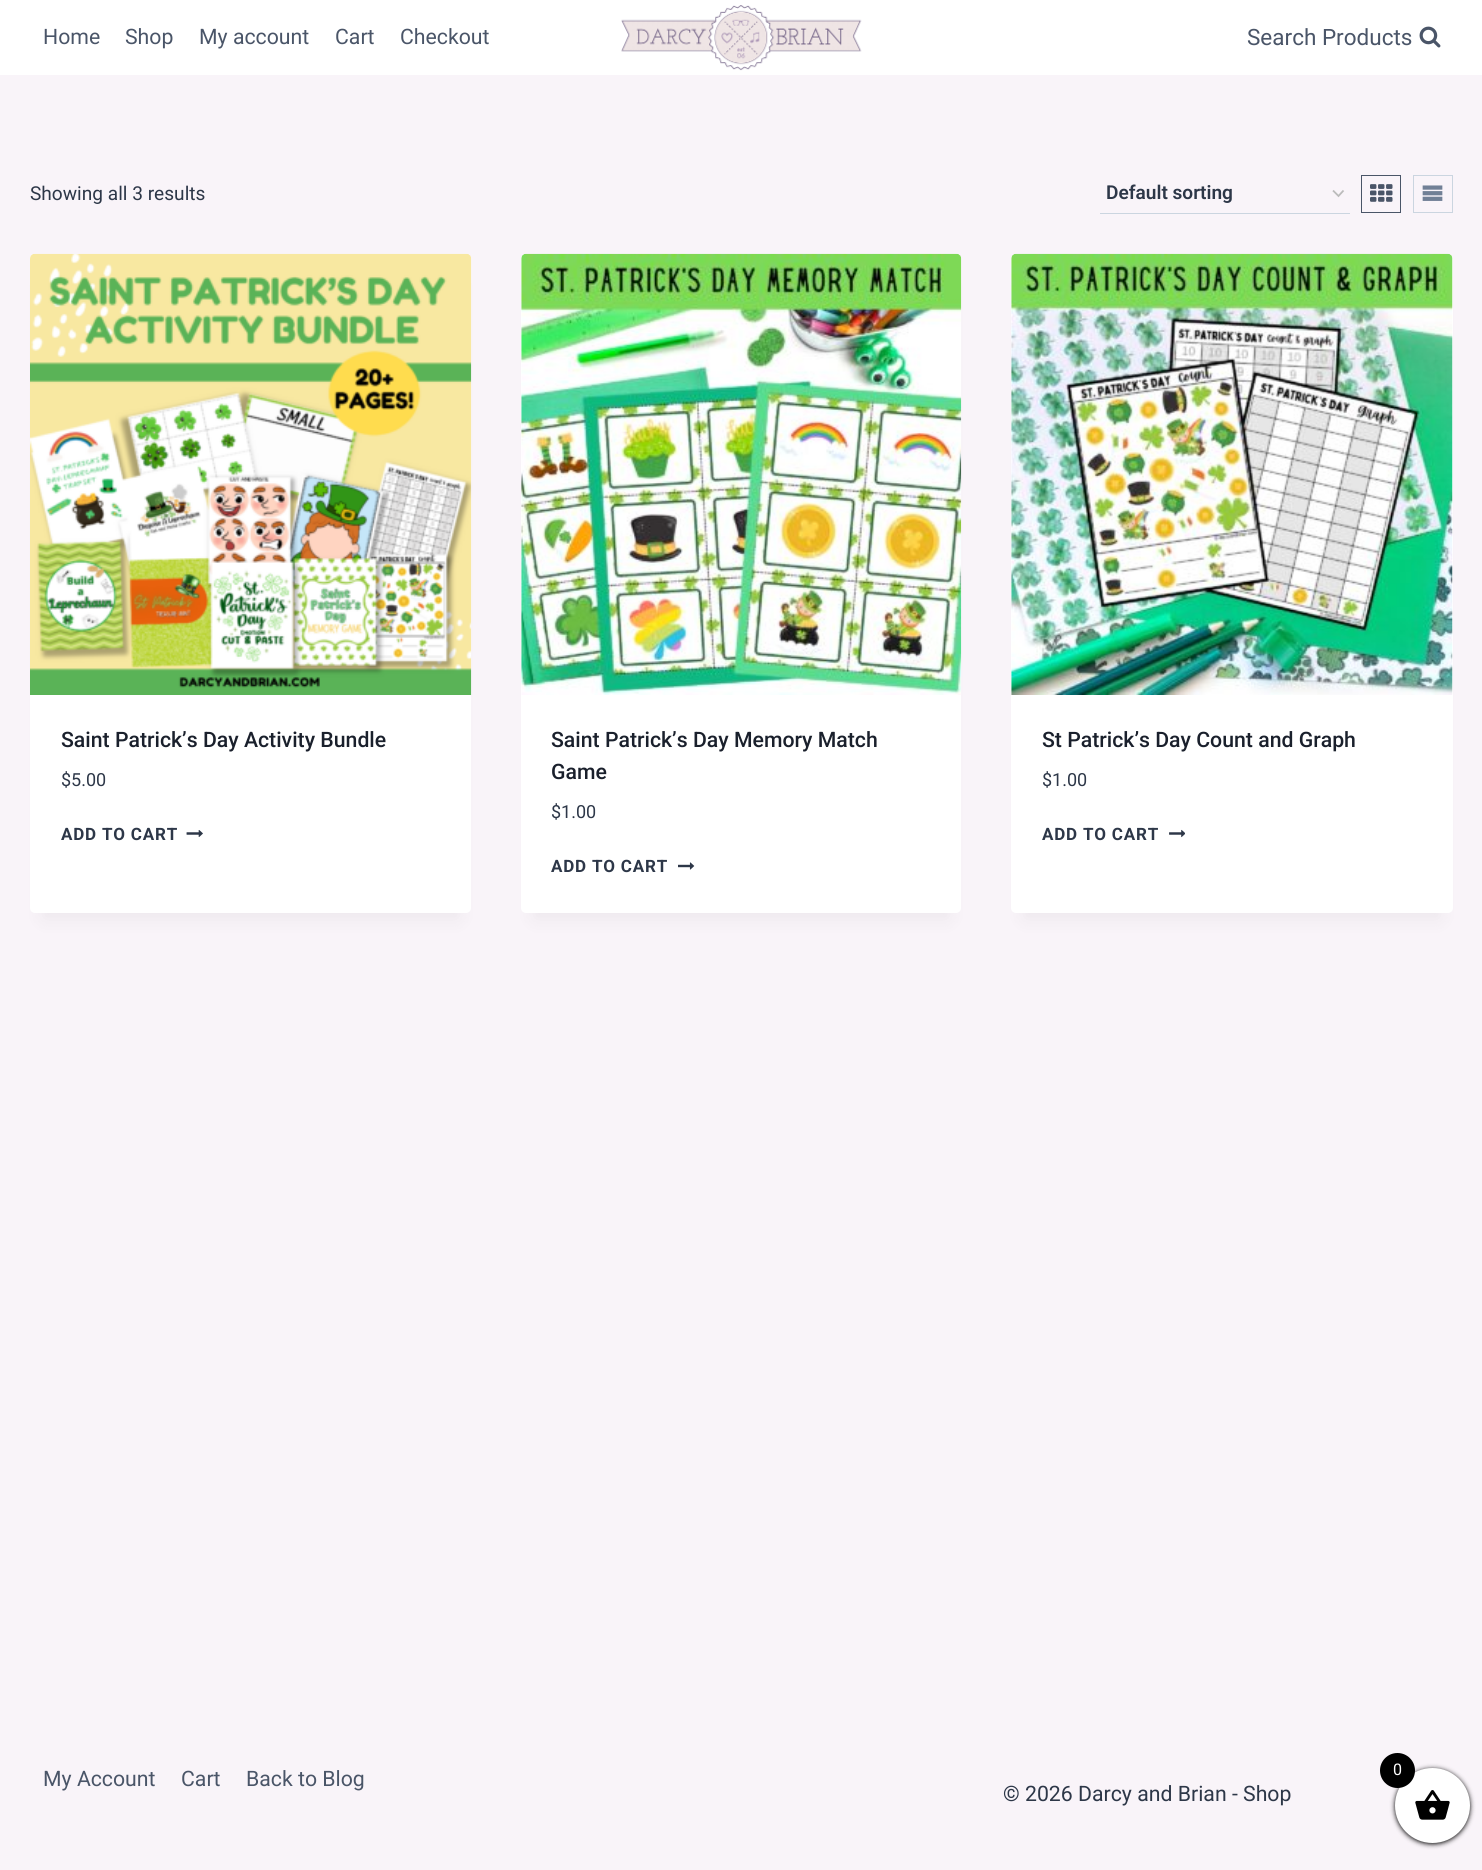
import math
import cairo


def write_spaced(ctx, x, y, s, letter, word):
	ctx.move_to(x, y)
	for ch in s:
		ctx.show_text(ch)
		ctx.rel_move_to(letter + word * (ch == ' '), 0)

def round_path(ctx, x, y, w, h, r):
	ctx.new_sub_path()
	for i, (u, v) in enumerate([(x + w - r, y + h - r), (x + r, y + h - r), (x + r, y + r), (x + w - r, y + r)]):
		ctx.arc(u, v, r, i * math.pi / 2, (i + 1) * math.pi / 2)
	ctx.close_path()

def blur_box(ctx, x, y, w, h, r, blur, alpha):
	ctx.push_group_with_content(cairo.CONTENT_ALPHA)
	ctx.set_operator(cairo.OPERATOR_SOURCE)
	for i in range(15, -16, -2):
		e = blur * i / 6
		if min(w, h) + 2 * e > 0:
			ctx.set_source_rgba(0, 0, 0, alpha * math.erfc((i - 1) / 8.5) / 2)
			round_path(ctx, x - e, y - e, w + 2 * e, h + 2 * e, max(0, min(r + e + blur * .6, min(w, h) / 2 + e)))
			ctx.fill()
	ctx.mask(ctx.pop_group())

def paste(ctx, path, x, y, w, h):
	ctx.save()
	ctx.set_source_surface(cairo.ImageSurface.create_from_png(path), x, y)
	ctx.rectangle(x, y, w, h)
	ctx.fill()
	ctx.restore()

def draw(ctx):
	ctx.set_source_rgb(0.973, 0.957, 0.976)
	ctx.paint()
	ctx.set_source_rgb(1, 1, 1)
	ctx.rectangle(0, 0, 1482, 75)
	ctx.fill()
	ctx.select_font_face('Roboto')
	ctx.set_font_size(21.25)
	ctx.set_source_rgb(0.29, 0.333, 0.408)
	for x, y, s in [
		(43, 44, 'Home'),
		(125, 44, 'Shop'),
		(199, 44, 'My account'),
		(335, 44, 'Cart'),
		(400, 44, 'Checkout'),
	]:
		ctx.move_to(x, y)
		ctx.show_text(s)
	paste(ctx, 'media/1.png', 621, 5, 241, 66)
	ctx.set_font_size(22.5)
	ctx.move_to(1247, 45)
	ctx.show_text('Search Products')
	paste(ctx, 'media/2.png', 1419, 26, 22, 22)
	ctx.set_font_size(19.1)
	ctx.set_source_rgb(0.176, 0.216, 0.282)
	ctx.move_to(30, 200)
	ctx.show_text('Showing all 3 results')
	ctx.new_path()
	ctx.move_to(1333, 190.5)
	ctx.line_to(1338.5, 196)
	ctx.line_to(1343.5, 190.5)
	ctx.set_source_rgb(0.733, 0.733, 0.733)
	ctx.set_line_width(1.8)
	ctx.stroke()
	ctx.set_source_rgb(0.796, 0.835, 0.878)
	ctx.rectangle(1100, 213, 250, 1)
	ctx.fill()
	ctx.select_font_face('Roboto SemiBold')
	ctx.set_source_rgb(0.176, 0.216, 0.282)
	ctx.move_to(1106, 199)
	ctx.show_text('Default sorting')
	ctx.rectangle(1361.5, 175.5, 39, 37)
	ctx.set_source_rgb(0.29, 0.333, 0.408)
	ctx.set_line_width(1)
	ctx.stroke()
	paste(ctx, 'media/3.png', 1370, 184, 23, 18)
	ctx.rectangle(1413.5, 175.5, 39, 37)
	ctx.set_source_rgb(0.796, 0.835, 0.878)
	ctx.stroke()
	paste(ctx, 'media/4.png', 1422, 185, 21, 16)
	ctx.set_source_rgb(0, 0, 0)
	blur_box(ctx, 43, 285, 416, 634, 0, 9.5, 0.05)
	ctx.set_source_rgb(1, 1, 1)
	round_path(ctx, 30, 254, 441, 659, 5)
	ctx.fill()
	paste(ctx, 'media/5.png', 30, 253, 442, 442)
	ctx.select_font_face('Roboto Medium')
	ctx.set_font_size(21.25)
	ctx.set_source_rgb(0.102, 0.125, 0.173)
	ctx.move_to(61, 747)
	ctx.show_text('Saint Patrick’s Day Activity Bundle')
	ctx.select_font_face('Roboto')
	ctx.set_font_size(18)
	ctx.set_source_rgb(0.176, 0.216, 0.282)
	ctx.move_to(61, 786)
	ctx.show_text('$5.00')
	ctx.select_font_face('Roboto', cairo.FONT_SLANT_NORMAL, cairo.FONT_WEIGHT_BOLD)
	ctx.set_font_size(17)
	write_spaced(ctx, 61, 840, 'ADD TO CART', 0.8, 0)
	paste(ctx, 'media/6.png', 186, 830, 17, 7)
	ctx.set_source_rgb(0, 0, 0)
	blur_box(ctx, 534, 285, 415, 634, 0, 9.5, 0.05)
	ctx.set_source_rgb(1, 1, 1)
	round_path(ctx, 521, 254, 440, 659, 5)
	ctx.fill()
	paste(ctx, 'media/7.png', 521, 253, 441, 442)
	ctx.select_font_face('Roboto Medium')
	ctx.set_font_size(21.25)
	ctx.set_source_rgb(0.102, 0.125, 0.173)
	ctx.move_to(551, 747)
	ctx.show_text('Saint Patrick’s Day Memory Match')
	ctx.move_to(551, 779)
	ctx.show_text('Game')
	ctx.select_font_face('Roboto')
	ctx.set_font_size(18)
	ctx.set_source_rgb(0.176, 0.216, 0.282)
	ctx.move_to(551, 818)
	ctx.show_text('$1.00')
	ctx.select_font_face('Roboto', cairo.FONT_SLANT_NORMAL, cairo.FONT_WEIGHT_BOLD)
	ctx.set_font_size(17)
	write_spaced(ctx, 551, 872, 'ADD TO CART', 0.8, 0)
	paste(ctx, 'media/8.png', 678, 862, 17, 8)
	ctx.set_source_rgb(0, 0, 0)
	blur_box(ctx, 1024, 285, 416, 634, 0, 9.5, 0.05)
	ctx.set_source_rgb(1, 1, 1)
	round_path(ctx, 1011, 254, 442, 659, 5)
	ctx.fill()
	paste(ctx, 'media/9.png', 1011, 253, 442, 442)
	ctx.select_font_face('Roboto Medium')
	ctx.set_font_size(21.25)
	ctx.set_source_rgb(0.102, 0.125, 0.173)
	ctx.move_to(1042, 747)
	ctx.show_text('St Patrick’s Day Count and Graph')
	ctx.select_font_face('Roboto')
	ctx.set_font_size(18)
	ctx.set_source_rgb(0.176, 0.216, 0.282)
	ctx.move_to(1042, 786)
	ctx.show_text('$1.00')
	ctx.select_font_face('Roboto', cairo.FONT_SLANT_NORMAL, cairo.FONT_WEIGHT_BOLD)
	ctx.set_font_size(17)
	write_spaced(ctx, 1042, 840, 'ADD TO CART', 0.8, 0)
	paste(ctx, 'media/10.png', 1169, 829, 16, 9)
	ctx.select_font_face('Roboto')
	ctx.set_font_size(21.25)
	ctx.set_source_rgb(0.29, 0.333, 0.408)
	for x, y, s in [
		(43, 1786, 'My Account'),
		(181, 1786, 'Cart'),
		(246, 1786, 'Back to Blog'),
	]:
		ctx.move_to(x, y)
		ctx.show_text(s)
	ctx.set_source_rgb(0.176, 0.216, 0.282)
	ctx.move_to(1003, 1801)
	ctx.show_text('© 2026 Darcy and Brian - Shop')
	ctx.set_source_rgb(0, 0, 0)
	blur_box(ctx, 1395, 1769, 75, 75, 37.5, 2.5, 1)
	ctx.set_source_rgb(1, 1, 1)
	ctx.arc(1432.5, 1805.5, 37.5, 0, 2 * math.pi)
	ctx.fill()
	ctx.set_source_rgb(0, 0, 0)
	ctx.arc(1397.5, 1770.5, 17.5, 0, 2 * math.pi)
	ctx.fill()
	ctx.set_font_size(16)
	ctx.set_source_rgb(1, 1, 1)
	ctx.move_to(1393, 1775)
	ctx.show_text('0')
	paste(ctx, 'media/11.png', 1415, 1790, 35, 30)


surface = cairo.ImageSurface(cairo.FORMAT_RGB24, 1482, 1870)
ctx = cairo.Context(surface)
options = cairo.FontOptions()
options.set_hint_metrics(cairo.HINT_METRICS_OFF)
options.set_hint_style(cairo.HINT_STYLE_NONE)
ctx.set_font_options(options)
ctx.set_miter_limit(4)
draw(ctx)
surface.write_to_png('image.png')
